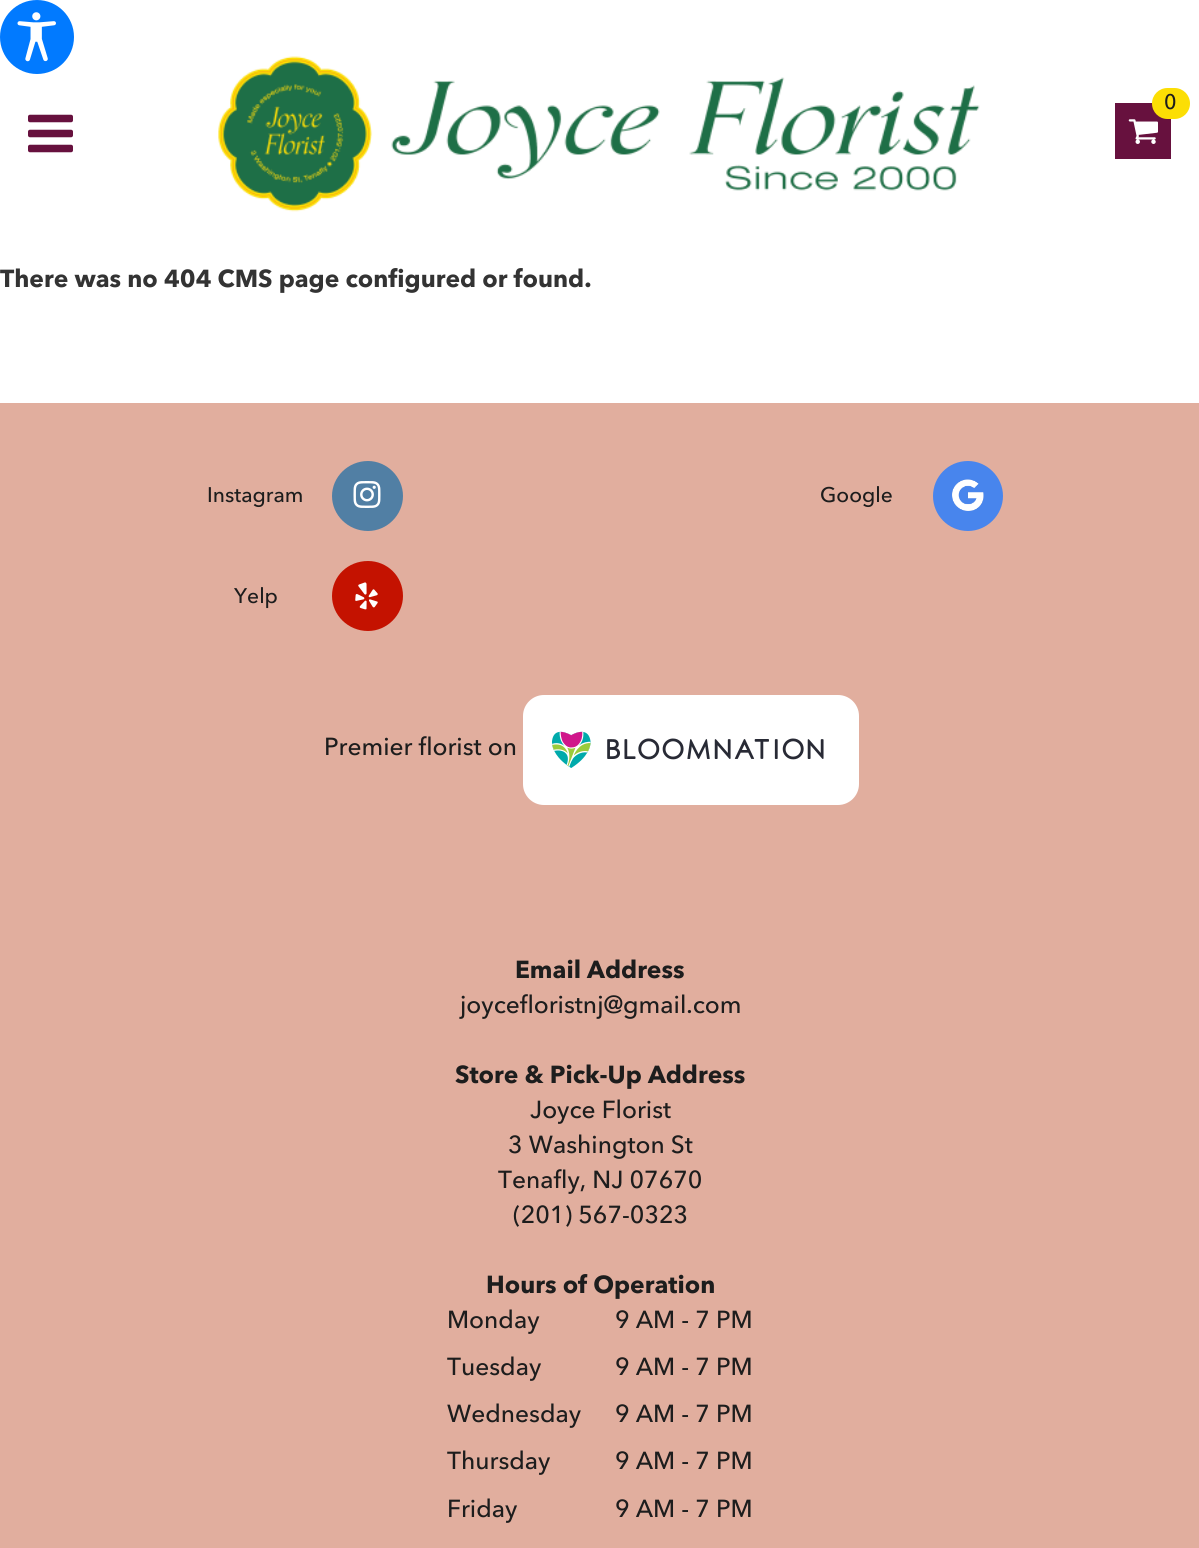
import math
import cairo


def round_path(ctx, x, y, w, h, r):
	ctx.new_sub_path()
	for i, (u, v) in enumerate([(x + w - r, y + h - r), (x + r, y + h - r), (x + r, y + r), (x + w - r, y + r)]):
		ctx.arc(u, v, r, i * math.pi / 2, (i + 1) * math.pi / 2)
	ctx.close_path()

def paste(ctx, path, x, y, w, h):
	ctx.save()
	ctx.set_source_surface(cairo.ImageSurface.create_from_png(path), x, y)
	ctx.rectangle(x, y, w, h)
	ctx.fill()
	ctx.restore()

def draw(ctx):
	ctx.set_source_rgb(1, 1, 1)
	ctx.paint()
	paste(ctx, 'media/1.png', 0, 0, 74, 74)
	paste(ctx, 'media/2.png', 218, 56, 762, 156)
	ctx.set_source_rgb(0.404, 0.067, 0.243)
	ctx.rectangle(1115, 103, 56, 56)
	ctx.fill()
	ctx.set_source_rgb(0.988, 0.871, 0.016)
	round_path(ctx, 1152, 88, 38, 31, 15.5)
	ctx.fill()
	ctx.select_font_face('Avenir Next Medium')
	ctx.set_font_size(21)
	ctx.set_source_rgb(0.114, 0.114, 0.114)
	ctx.move_to(1164, 109)
	ctx.show_text('0')
	paste(ctx, 'media/3.png', 1128, 119, 30, 25)
	paste(ctx, 'media/4.png', 28, 114, 45, 39)
	ctx.select_font_face('Avenir Next', cairo.FONT_SLANT_NORMAL, cairo.FONT_WEIGHT_BOLD)
	ctx.set_font_size(24.5)
	ctx.set_source_rgb(0.2, 0.2, 0.2)
	ctx.move_to(0, 287)
	ctx.show_text('There was no 404 CMS page configured or found.')
	ctx.set_source_rgb(0.882, 0.682, 0.62)
	ctx.rectangle(0, 403, 1199, 1145)
	ctx.fill()
	ctx.select_font_face('Avenir Next Medium')
	ctx.set_font_size(21)
	ctx.set_source_rgb(0.114, 0.114, 0.114)
	ctx.move_to(207, 502)
	ctx.show_text('Instagram')
	ctx.set_source_rgb(0.318, 0.498, 0.643)
	ctx.new_path()
	ctx.move_to(403, 496)
	ctx.curve_to(403, 477, 387, 461, 368, 461)
	ctx.curve_to(348, 461, 332, 477, 332, 496)
	ctx.curve_to(332, 515, 348, 531, 368, 531)
	ctx.curve_to(387, 531, 403, 515, 403, 496)
	ctx.close_path()
	ctx.fill()
	paste(ctx, 'media/5.png', 353, 481, 28, 27)
	ctx.set_source_rgb(0.114, 0.114, 0.114)
	ctx.move_to(820, 502)
	ctx.show_text('Google')
	ctx.set_source_rgb(0.282, 0.522, 0.929)
	ctx.new_path()
	ctx.move_to(1003, 496)
	ctx.curve_to(1003, 477, 987, 461, 968, 461)
	ctx.curve_to(948, 461, 933, 477, 933, 496)
	ctx.curve_to(933, 515, 948, 531, 968, 531)
	ctx.curve_to(987, 531, 1003, 515, 1003, 496)
	ctx.close_path()
	ctx.fill()
	paste(ctx, 'media/6.png', 952, 479, 32, 32)
	ctx.set_source_rgb(0.114, 0.114, 0.114)
	ctx.move_to(234, 603)
	ctx.show_text('Yelp')
	ctx.set_source_rgb(0.769, 0.071, 0)
	ctx.new_path()
	ctx.move_to(403, 596)
	ctx.curve_to(403, 576, 387, 561, 368, 561)
	ctx.curve_to(348, 561, 332, 576, 332, 596)
	ctx.curve_to(332, 615, 348, 631, 368, 631)
	ctx.curve_to(387, 631, 403, 615, 403, 596)
	ctx.close_path()
	ctx.fill()
	paste(ctx, 'media/7.png', 355, 582, 23, 28)
	ctx.set_font_size(24.5)
	ctx.set_source_rgb(0.114, 0.114, 0.114)
	ctx.move_to(324, 755)
	ctx.show_text('Premier florist on')
	ctx.set_source_rgb(1, 1, 1)
	round_path(ctx, 523, 695, 336, 110, 21)
	ctx.fill()
	paste(ctx, 'media/8.png', 552, 731, 272, 37)
	ctx.select_font_face('Avenir Next', cairo.FONT_SLANT_NORMAL, cairo.FONT_WEIGHT_BOLD)
	ctx.set_source_rgb(0.114, 0.114, 0.114)
	ctx.move_to(515, 978)
	ctx.show_text('Email Address')
	ctx.select_font_face('Avenir Next Medium')
	ctx.move_to(460, 1013)
	ctx.show_text('joycefloristnj@gmail.com')
	ctx.select_font_face('Avenir Next', cairo.FONT_SLANT_NORMAL, cairo.FONT_WEIGHT_BOLD)
	ctx.move_to(455, 1083)
	ctx.show_text('Store & Pick-Up Address')
	ctx.select_font_face('Avenir Next Medium')
	for x, y, s in [
		(530, 1118, 'Joyce Florist'),
		(508, 1153, '3 Washington St'),
		(498, 1188, 'Tenafly, NJ 07670'),
		(513, 1223, '(201) 567-0323'),
	]:
		ctx.move_to(x, y)
		ctx.show_text(s)
	ctx.select_font_face('Avenir Next', cairo.FONT_SLANT_NORMAL, cairo.FONT_WEIGHT_BOLD)
	ctx.move_to(486, 1293)
	ctx.show_text('Hours of Operation')
	ctx.select_font_face('Avenir Next Medium')
	for x, y, s in [
		(447, 1328, 'Monday'),
		(615, 1328, '9 AM - 7 PM'),
		(447, 1375, 'Tuesday'),
		(615, 1375, '9 AM - 7 PM'),
		(447, 1422, 'Wednesday'),
		(615, 1422, '9 AM - 7 PM'),
		(447, 1469, 'Thursday'),
		(615, 1469, '9 AM - 7 PM'),
		(447, 1517, 'Friday'),
		(615, 1517, '9 AM - 7 PM'),
	]:
		ctx.move_to(x, y)
		ctx.show_text(s)


surface = cairo.ImageSurface(cairo.FORMAT_RGB24, 1199, 1548)
ctx = cairo.Context(surface)
options = cairo.FontOptions()
options.set_hint_metrics(cairo.HINT_METRICS_OFF)
options.set_hint_style(cairo.HINT_STYLE_NONE)
ctx.set_font_options(options)
ctx.set_miter_limit(4)
draw(ctx)
surface.write_to_png('image.png')
